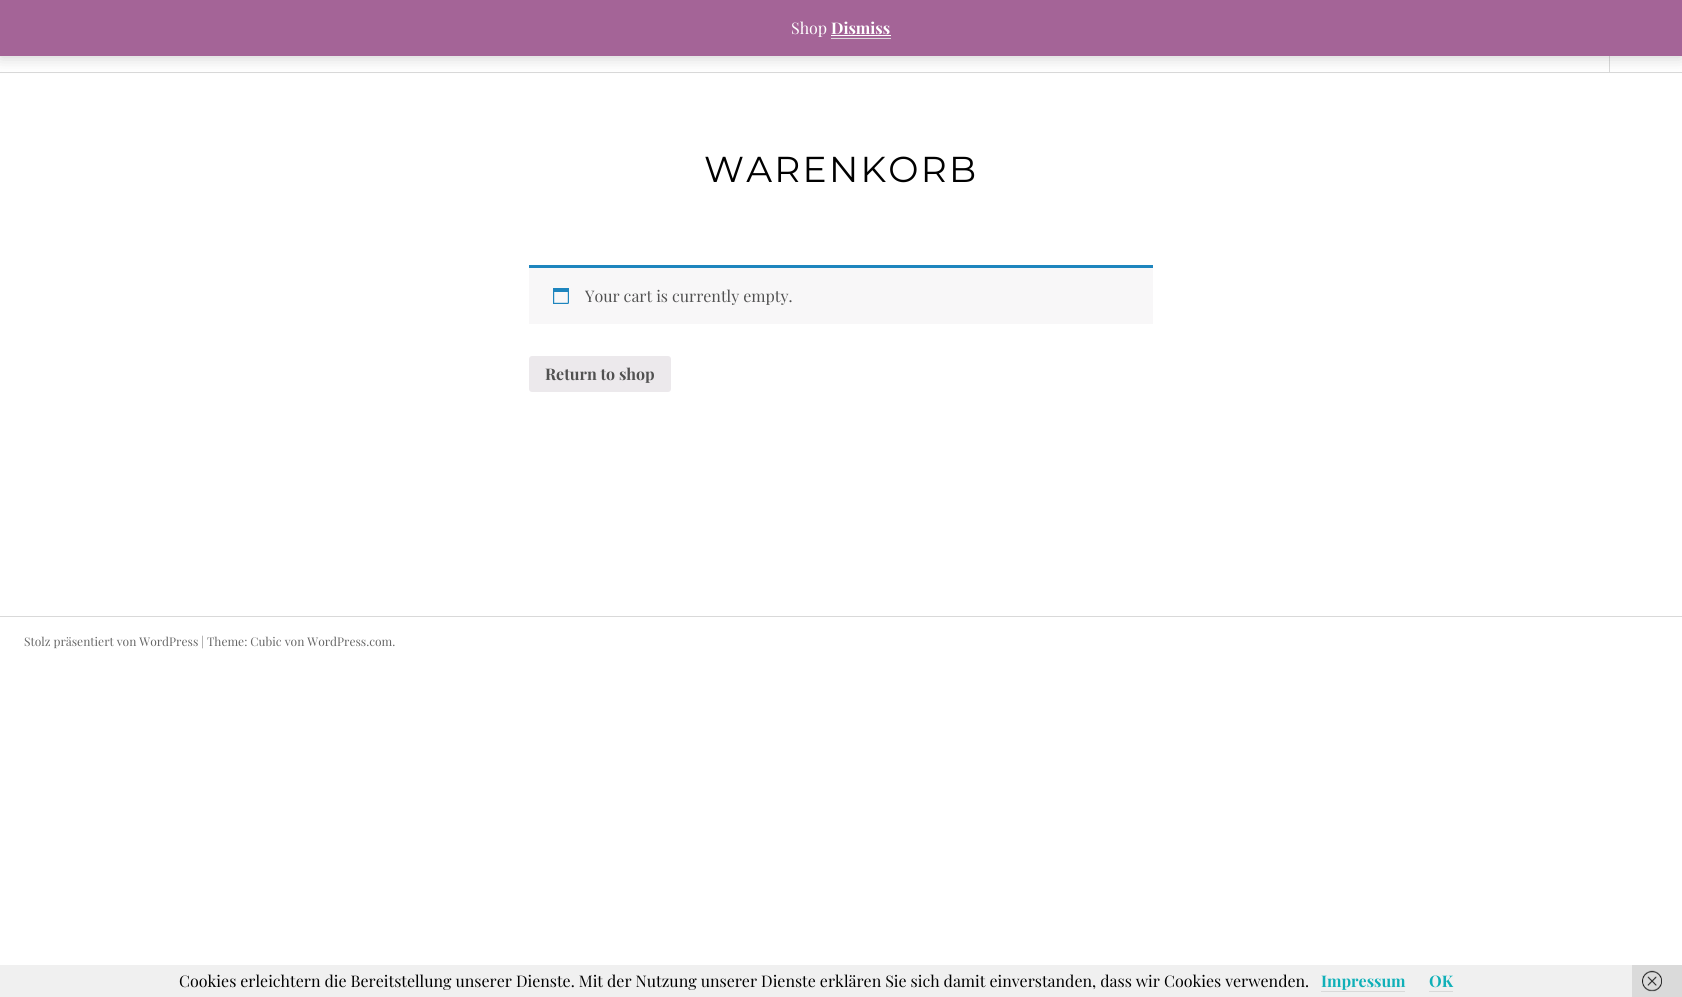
import math
import cairo


def write_spaced(ctx, x, y, s, letter, word):
	ctx.move_to(x, y)
	for ch in s:
		ctx.show_text(ch)
		ctx.rel_move_to(letter + word * (ch == ' '), 0)

def round_path(ctx, x, y, w, h, r):
	ctx.new_sub_path()
	for i, (u, v) in enumerate([(x + w - r, y + h - r), (x + r, y + h - r), (x + r, y + r), (x + w - r, y + r)]):
		ctx.arc(u, v, r, i * math.pi / 2, (i + 1) * math.pi / 2)
	ctx.close_path()

def blur_box(ctx, x, y, w, h, r, blur, alpha):
	ctx.push_group_with_content(cairo.CONTENT_ALPHA)
	ctx.set_operator(cairo.OPERATOR_SOURCE)
	for i in range(15, -16, -2):
		e = blur * i / 6
		if min(w, h) + 2 * e > 0:
			ctx.set_source_rgba(0, 0, 0, alpha * math.erfc((i - 1) / 8.5) / 2)
			round_path(ctx, x - e, y - e, w + 2 * e, h + 2 * e, max(0, min(r + e + blur * .6, min(w, h) / 2 + e)))
			ctx.fill()
	ctx.mask(ctx.pop_group())

def paste(ctx, path, x, y, w, h):
	ctx.save()
	ctx.set_source_surface(cairo.ImageSurface.create_from_png(path), x, y)
	ctx.rectangle(x, y, w, h)
	ctx.fill()
	ctx.restore()

def draw(ctx):
	ctx.set_source_rgb(1, 1, 1)
	ctx.paint()
	ctx.set_source_rgb(0.851, 0.851, 0.851)
	ctx.rectangle(0, 72, 1682, 1)
	ctx.fill()
	ctx.rectangle(1609, 56, 1, 16)
	ctx.fill()
	ctx.set_source_rgb(0, 0, 0)
	blur_box(ctx, 0, 1, 1682, 56, 0, 8, 0.2)
	ctx.set_source_rgb(0.643, 0.392, 0.592)
	ctx.rectangle(0, 0, 1682, 56)
	ctx.fill()
	ctx.select_font_face('Playfair Display')
	ctx.set_font_size(16)
	ctx.set_source_rgb(1, 1, 1)
	ctx.move_to(791, 34)
	ctx.show_text('Shop')
	ctx.select_font_face('Playfair Display', cairo.FONT_SLANT_NORMAL, cairo.FONT_WEIGHT_BOLD)
	ctx.move_to(831, 34)
	ctx.show_text('Dismiss')
	ctx.set_source_rgb(0.851, 0.851, 0.851)
	ctx.rectangle(831, 38, 60, 1)
	ctx.fill()
	ctx.set_source_rgb(1, 1, 1)
	ctx.rectangle(831, 35, 60, 1)
	ctx.fill()
	ctx.select_font_face('Montserrat')
	ctx.set_font_size(36)
	ctx.set_source_rgb(0, 0, 0)
	write_spaced(ctx, 704, 182, 'WARENKORB', 2.25, 0)
	ctx.set_source_rgb(0.969, 0.965, 0.969)
	ctx.rectangle(529, 268, 624, 56)
	ctx.fill()
	ctx.set_source_rgb(0.118, 0.522, 0.745)
	ctx.rectangle(529, 265, 624, 3)
	ctx.fill()
	paste(ctx, 'media/1.png', 553, 288, 16, 16)
	ctx.select_font_face('Playfair Display')
	ctx.set_font_size(16)
	ctx.set_source_rgb(0.318, 0.318, 0.318)
	ctx.move_to(585, 302)
	ctx.show_text('Your cart is currently empty.')
	ctx.set_source_rgb(0.922, 0.914, 0.922)
	round_path(ctx, 529, 356, 142, 36, 3)
	ctx.fill()
	ctx.select_font_face('Playfair Display', cairo.FONT_SLANT_NORMAL, cairo.FONT_WEIGHT_BOLD)
	ctx.set_source_rgb(0.318, 0.318, 0.318)
	ctx.move_to(545, 380)
	ctx.show_text('Return to shop')
	ctx.set_source_rgb(0.851, 0.851, 0.851)
	ctx.rectangle(0, 616, 1682, 1)
	ctx.fill()
	ctx.select_font_face('Playfair Display')
	ctx.set_font_size(12)
	ctx.set_source_rgb(0.4, 0.4, 0.4)
	ctx.move_to(24, 646)
	ctx.show_text('Stolz präsentiert von WordPress | Theme: Cubic von WordPress.com.')
	ctx.set_source_rgb(0.941, 0.941, 0.941)
	ctx.rectangle(0, 965, 1632, 32)
	ctx.fill()
	ctx.set_font_size(16)
	ctx.set_source_rgb(0, 0, 0)
	ctx.move_to(179, 987)
	ctx.show_text('Cookies erleichtern die Bereitstellung unserer Dienste. Mit der Nutzung unserer Dienste erklären Sie sich damit einverstanden, dass wir Cookies verwenden.')
	ctx.select_font_face('Playfair Display', cairo.FONT_SLANT_NORMAL, cairo.FONT_WEIGHT_BOLD)
	ctx.set_source_rgb(0.063, 0.69, 0.722)
	ctx.move_to(1321, 987)
	ctx.show_text('Impressum')
	ctx.set_source_rgb(0.851, 0.851, 0.851)
	ctx.rectangle(1321, 991, 84, 1)
	ctx.fill()
	ctx.set_source_rgb(0.063, 0.69, 0.722)
	ctx.move_to(1429, 987)
	ctx.show_text('OK')
	ctx.set_source_rgb(0.851, 0.851, 0.851)
	ctx.rectangle(1429, 991, 24, 1)
	ctx.fill()
	ctx.set_source_rgb(0.855, 0.855, 0.855)
	ctx.rectangle(1632, 965, 50, 32)
	ctx.fill()
	paste(ctx, 'media/2.png', 1642, 970, 20, 22)


surface = cairo.ImageSurface(cairo.FORMAT_RGB24, 1682, 997)
ctx = cairo.Context(surface)
options = cairo.FontOptions()
options.set_hint_metrics(cairo.HINT_METRICS_OFF)
options.set_hint_style(cairo.HINT_STYLE_NONE)
ctx.set_font_options(options)
ctx.set_miter_limit(4)
draw(ctx)
surface.write_to_png('image.png')
